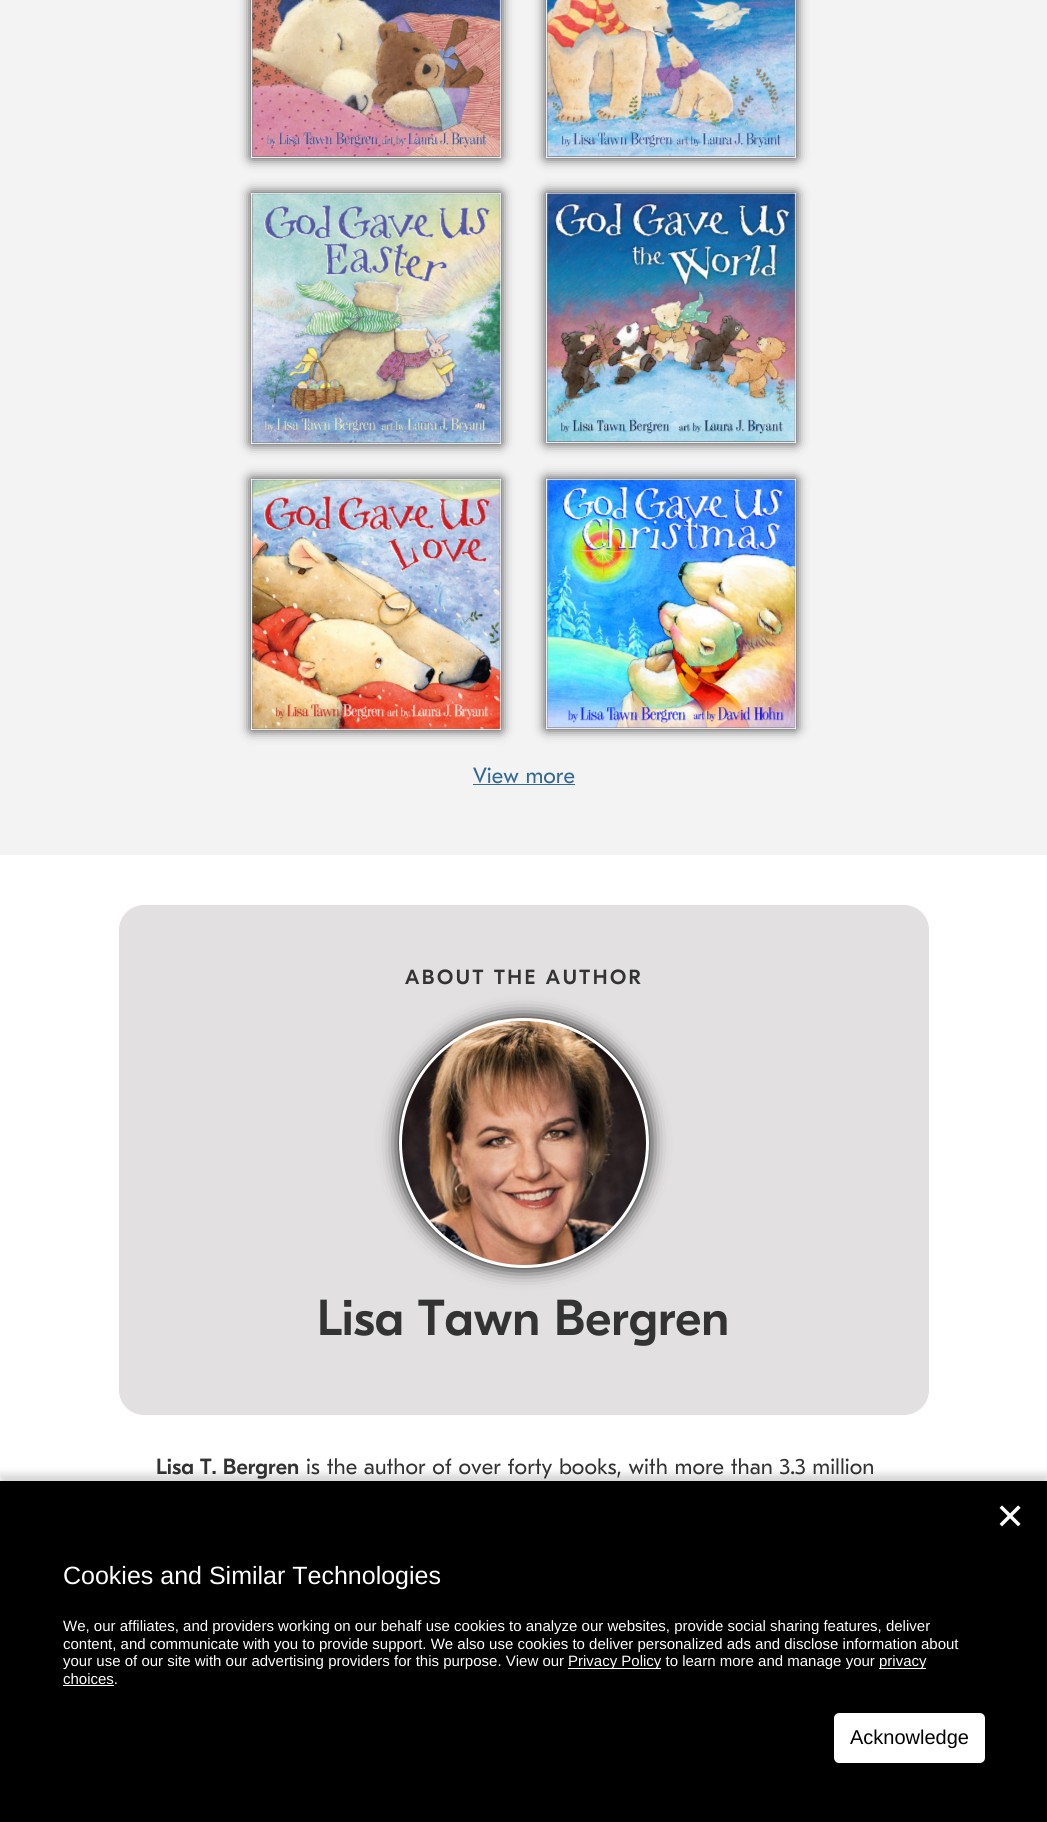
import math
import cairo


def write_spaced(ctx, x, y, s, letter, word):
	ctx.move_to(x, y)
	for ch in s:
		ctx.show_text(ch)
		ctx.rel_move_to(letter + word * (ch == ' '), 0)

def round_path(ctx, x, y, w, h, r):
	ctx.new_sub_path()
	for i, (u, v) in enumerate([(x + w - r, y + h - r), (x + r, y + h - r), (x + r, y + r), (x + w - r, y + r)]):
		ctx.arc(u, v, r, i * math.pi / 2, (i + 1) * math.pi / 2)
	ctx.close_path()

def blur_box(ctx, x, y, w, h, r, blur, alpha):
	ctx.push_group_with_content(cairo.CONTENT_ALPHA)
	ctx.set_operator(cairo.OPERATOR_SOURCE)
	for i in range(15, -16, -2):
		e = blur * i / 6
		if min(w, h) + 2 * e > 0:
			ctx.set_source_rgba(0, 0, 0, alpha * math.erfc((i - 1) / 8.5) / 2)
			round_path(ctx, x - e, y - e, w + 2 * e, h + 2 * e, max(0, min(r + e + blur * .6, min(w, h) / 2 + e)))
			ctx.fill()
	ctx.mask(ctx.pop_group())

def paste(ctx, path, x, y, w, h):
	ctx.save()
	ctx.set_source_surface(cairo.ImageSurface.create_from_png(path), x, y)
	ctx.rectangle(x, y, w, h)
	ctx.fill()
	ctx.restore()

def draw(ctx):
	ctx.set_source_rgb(1, 1, 1)
	ctx.paint()
	ctx.set_source_rgb(0.957, 0.953, 0.953)
	ctx.rectangle(0, 0, 1047, 855)
	ctx.fill()
	ctx.set_source_rgb(0.2, 0.2, 0.2)
	blur_box(ctx, 251, -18, 250, 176, 0, 6, 1)
	ctx.rectangle(251.5, -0.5, 249, 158)
	ctx.set_source_rgb(0.933, 0.933, 0.933)
	ctx.set_line_width(1)
	ctx.stroke()
	paste(ctx, 'media/1.png', 252, 0, 249, 157)
	ctx.set_source_rgb(0.2, 0.2, 0.2)
	blur_box(ctx, 546, -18, 250, 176, 0, 6, 1)
	ctx.rectangle(546.5, -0.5, 249, 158)
	ctx.set_source_rgb(0.933, 0.933, 0.933)
	ctx.stroke()
	paste(ctx, 'media/2.png', 547, 0, 249, 157)
	ctx.set_source_rgb(0.2, 0.2, 0.2)
	blur_box(ctx, 251, 193, 250, 251, 0, 6, 1)
	ctx.rectangle(251.5, 193.5, 249, 250)
	ctx.set_source_rgb(0.933, 0.933, 0.933)
	ctx.stroke()
	paste(ctx, 'media/3.png', 252, 193, 249, 251)
	ctx.set_source_rgb(0.2, 0.2, 0.2)
	blur_box(ctx, 546, 193, 250, 250, 0, 6, 1)
	ctx.rectangle(546.5, 193.5, 249, 249)
	ctx.set_source_rgb(0.933, 0.933, 0.933)
	ctx.stroke()
	paste(ctx, 'media/4.png', 547, 193, 249, 249)
	ctx.set_source_rgb(0.2, 0.2, 0.2)
	blur_box(ctx, 251, 479, 250, 251, 0, 6, 1)
	ctx.rectangle(251.5, 479.5, 249, 250)
	ctx.set_source_rgb(0.933, 0.933, 0.933)
	ctx.stroke()
	paste(ctx, 'media/5.png', 252, 479, 249, 251)
	ctx.set_source_rgb(0.2, 0.2, 0.2)
	blur_box(ctx, 546, 479, 250, 250, 0, 6, 1)
	ctx.rectangle(546.5, 479.5, 249, 249)
	ctx.set_source_rgb(0.933, 0.933, 0.933)
	ctx.stroke()
	paste(ctx, 'media/6.png', 547, 479, 249, 250)
	ctx.select_font_face('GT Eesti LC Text')
	ctx.set_font_size(22)
	ctx.set_source_rgb(0.196, 0.408, 0.569)
	ctx.move_to(473, 783)
	ctx.show_text('View more')
	ctx.rectangle(473, 784, 102, 1)
	ctx.fill()
	ctx.set_source_rgb(0.886, 0.878, 0.878)
	round_path(ctx, 119, 905, 810, 510, 25)
	ctx.fill()
	ctx.select_font_face('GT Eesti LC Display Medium')
	ctx.set_font_size(20.5)
	ctx.set_source_rgb(0.2, 0.2, 0.2)
	write_spaced(ctx, 405, 984, 'ABOUT THE AUTHOR', 2.5, 0)
	ctx.set_source_rgb(0, 0, 0)
	blur_box(ctx, 399, 1018, 250, 250, 125, 9.5, 1)
	paste(ctx, 'media/7.png', 398, 1017, 251, 251)
	ctx.arc(524, 1143, 123.5, 0, 2 * math.pi)
	ctx.set_source_rgb(1, 1, 1)
	ctx.set_line_width(3)
	ctx.stroke()
	ctx.set_font_size(50.5)
	ctx.set_source_rgb(0.2, 0.2, 0.2)
	ctx.move_to(317, 1335)
	ctx.show_text('Lisa Tawn Bergren')
	ctx.set_font_size(22)
	ctx.move_to(156, 1474)
	ctx.show_text('Lisa T. Bergren')
	ctx.select_font_face('GT Eesti LC Text')
	ctx.move_to(306, 1474)
	ctx.show_text('is the author of over forty books, with more than 3.3 million')
	ctx.set_source_rgb(0, 0, 0)
	blur_box(ctx, 0, 1474, 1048, 341, 0, 4, 0.16)
	ctx.set_source_rgb(0, 0, 0)
	ctx.rectangle(0, 1481, 1047, 341)
	ctx.fill()
	ctx.select_font_face('DejaVu Sans')
	ctx.set_font_size(36)
	ctx.set_source_rgb(1, 1, 1)
	ctx.move_to(995, 1529)
	ctx.show_text('✕')
	ctx.select_font_face('Liberation Sans')
	ctx.set_font_size(25)
	ctx.move_to(63, 1584)
	ctx.show_text('Cookies and Similar Technologies')
	ctx.set_font_size(15)
	for x, y, s in [
		(63, 1631, 'We, our affiliates, and providers working on our behalf use cookies to analyze our websites, provide social sharing features, deliver'),
		(63, 1649, 'content, and communicate with you to provide support. We also use cookies to deliver personalized ads and disclose information about'),
		(63, 1666, 'your use of our site with our advertising providers for this purpose. View our'),
	]:
		ctx.move_to(x, y)
		ctx.show_text(s)
	ctx.rectangle(568, 1668, 93, 1)
	ctx.fill()
	ctx.move_to(568, 1666)
	ctx.show_text('Privacy Policy to learn more and manage your')
	ctx.rectangle(879, 1668, 47, 1)
	ctx.fill()
	ctx.move_to(879, 1666)
	ctx.show_text('privacy')
	ctx.move_to(63, 1684)
	ctx.show_text('choices.')
	ctx.rectangle(63, 1685, 51, 1)
	ctx.fill()
	round_path(ctx, 835.5, 1714.5, 148, 47, 3.5)
	ctx.fill_preserve()
	ctx.stroke()
	ctx.set_font_size(20)
	ctx.set_source_rgb(0, 0, 0)
	ctx.move_to(850, 1744)
	ctx.show_text('Acknowledge')


surface = cairo.ImageSurface(cairo.FORMAT_RGB24, 1047, 1822)
ctx = cairo.Context(surface)
options = cairo.FontOptions()
options.set_hint_metrics(cairo.HINT_METRICS_OFF)
options.set_hint_style(cairo.HINT_STYLE_NONE)
ctx.set_font_options(options)
ctx.set_miter_limit(4)
draw(ctx)
surface.write_to_png('image.png')
